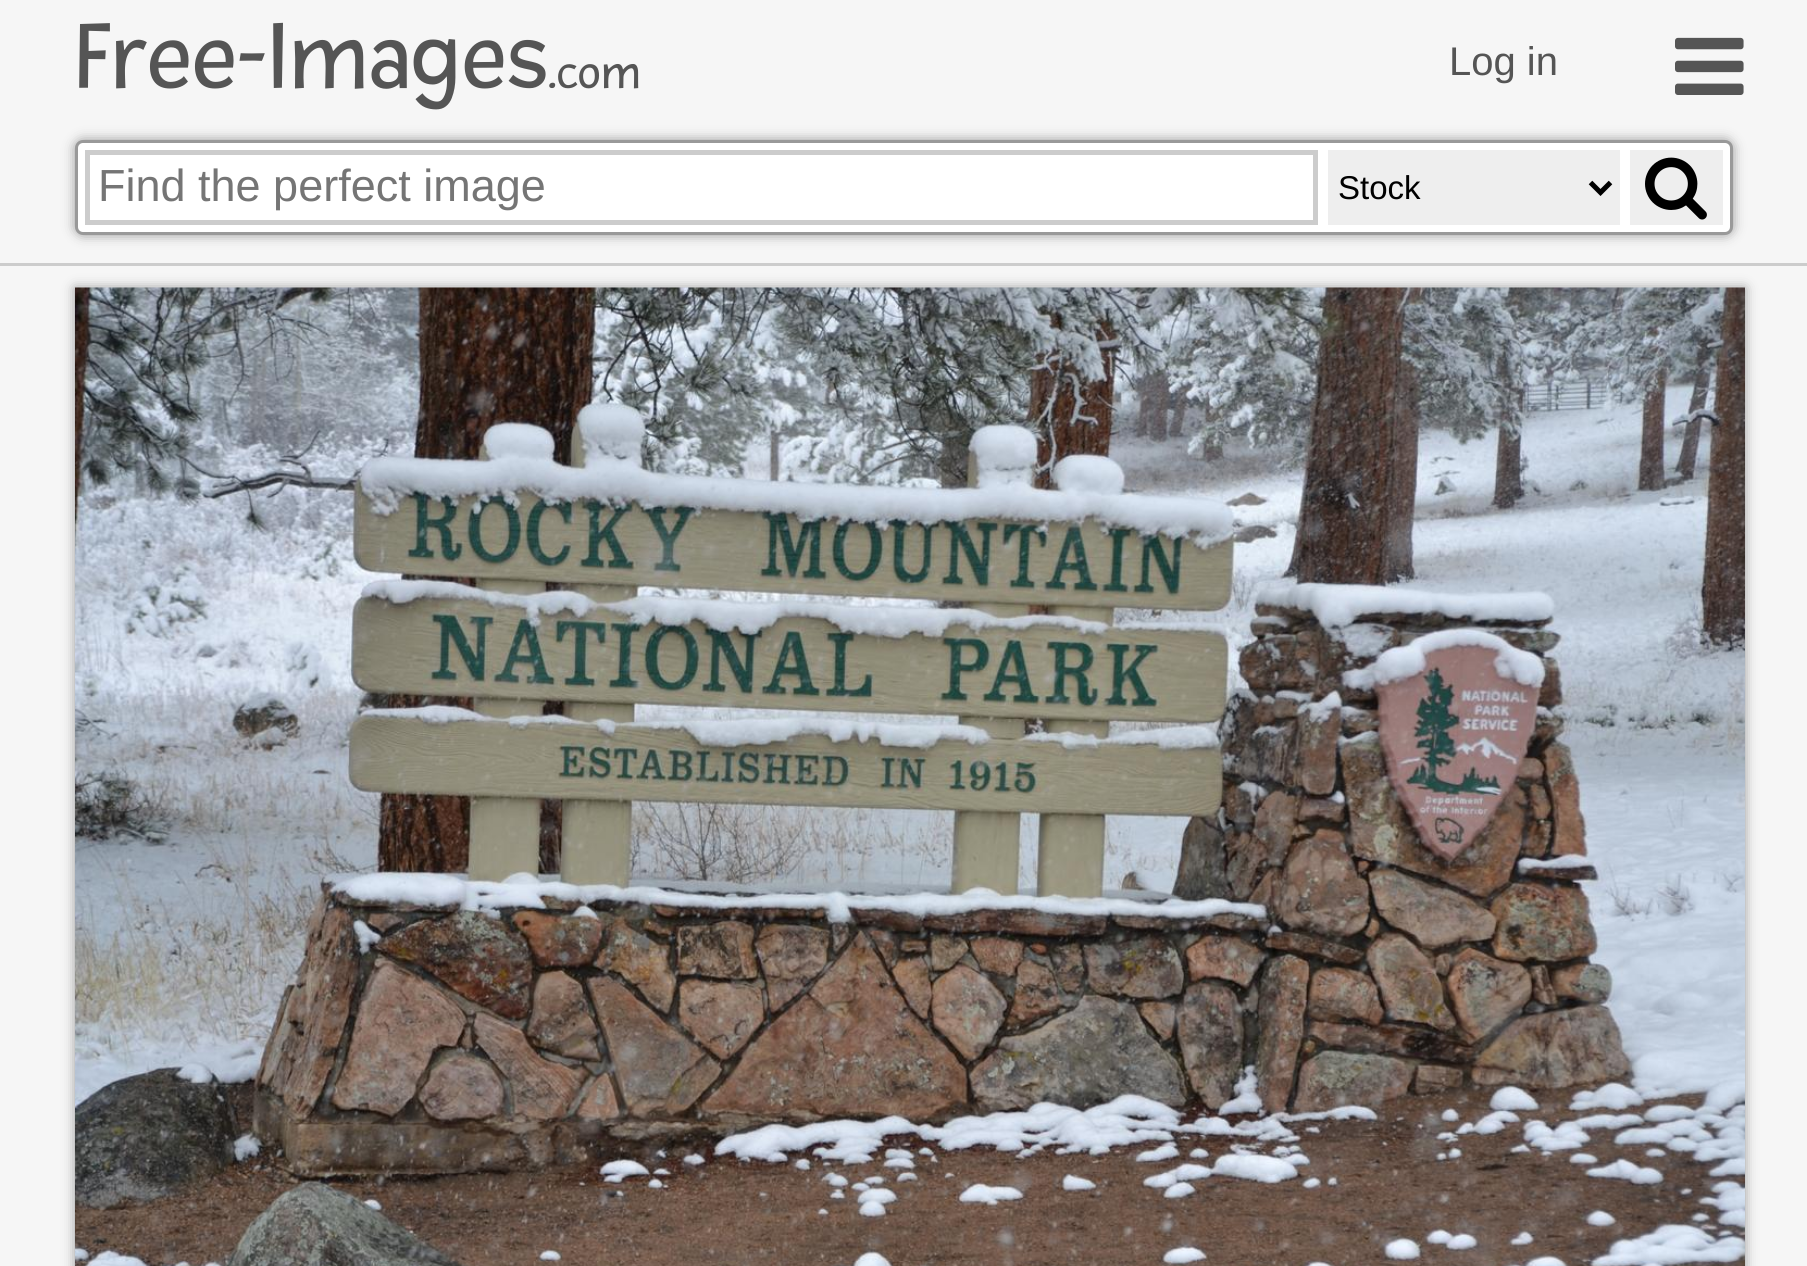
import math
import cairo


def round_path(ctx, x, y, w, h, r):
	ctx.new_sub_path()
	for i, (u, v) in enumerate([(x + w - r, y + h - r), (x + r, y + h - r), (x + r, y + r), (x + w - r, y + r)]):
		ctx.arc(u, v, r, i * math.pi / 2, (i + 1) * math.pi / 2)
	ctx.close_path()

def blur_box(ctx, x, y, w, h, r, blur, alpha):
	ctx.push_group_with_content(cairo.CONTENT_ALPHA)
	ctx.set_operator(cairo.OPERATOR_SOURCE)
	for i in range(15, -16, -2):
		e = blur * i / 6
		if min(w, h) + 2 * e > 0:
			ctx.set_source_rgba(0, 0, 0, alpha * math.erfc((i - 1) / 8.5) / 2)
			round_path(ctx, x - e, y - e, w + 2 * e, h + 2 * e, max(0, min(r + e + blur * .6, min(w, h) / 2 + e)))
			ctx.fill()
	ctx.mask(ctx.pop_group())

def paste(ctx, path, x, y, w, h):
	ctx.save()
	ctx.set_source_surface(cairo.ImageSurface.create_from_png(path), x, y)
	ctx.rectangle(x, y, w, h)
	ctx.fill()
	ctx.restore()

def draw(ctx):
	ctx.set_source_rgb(0.961, 0.961, 0.961)
	ctx.paint()
	ctx.set_source_rgb(0.8, 0.8, 0.8)
	ctx.rectangle(0, 263, 1807, 3)
	ctx.fill()
	ctx.select_font_face('Fresca')
	ctx.set_font_size(100)
	ctx.set_source_rgb(0.333, 0.333, 0.333)
	ctx.move_to(75, 88)
	ctx.show_text('Free-Images')
	ctx.set_font_size(50)
	ctx.move_to(548, 88)
	ctx.show_text('.com')
	ctx.set_source_rgb(0.6, 0.6, 0.6)
	blur_box(ctx, 75, 140, 1658, 95, 8, 6, 1)
	ctx.set_source_rgb(1, 1, 1)
	round_path(ctx, 76.5, 141.5, 1655, 92, 6.5)
	ctx.fill_preserve()
	ctx.set_source_rgb(0.6, 0.6, 0.6)
	ctx.set_line_width(3)
	ctx.stroke()
	ctx.rectangle(87.5, 152.5, 1228, 70)
	ctx.set_source_rgb(0.8, 0.8, 0.8)
	ctx.set_line_width(5)
	ctx.stroke()
	ctx.select_font_face('Liberation Sans')
	ctx.set_font_size(45)
	ctx.set_source_rgb(0.459, 0.459, 0.459)
	ctx.move_to(98, 201)
	ctx.show_text('Find the perfect image')
	ctx.set_source_rgb(0.933, 0.933, 0.933)
	ctx.rectangle(1328, 150, 292, 75)
	ctx.fill()
	ctx.new_path()
	ctx.move_to(1590.5, 182.5)
	ctx.line_to(1600.5, 192.5)
	ctx.line_to(1610.5, 182.5)
	ctx.set_source_rgb(0, 0, 0)
	ctx.stroke()
	ctx.set_font_size(33)
	ctx.move_to(1338, 199)
	ctx.show_text('Stock')
	ctx.set_source_rgb(0.933, 0.933, 0.933)
	ctx.rectangle(1630, 150, 93, 75)
	ctx.fill()
	paste(ctx, 'media/1.png', 1645, 157, 62, 63)
	ctx.set_font_size(40)
	ctx.set_source_rgb(0.333, 0.333, 0.333)
	ctx.move_to(1449, 75)
	ctx.show_text('Log in')
	paste(ctx, 'media/2.png', 1675, 37, 69, 58)
	ctx.set_source_rgb(0.6, 0.6, 0.6)
	blur_box(ctx, 75, 288, 1670, 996, 0, 6, 1)
	paste(ctx, 'media/3.png', 75, 287, 1670, 979)


surface = cairo.ImageSurface(cairo.FORMAT_RGB24, 1807, 1266)
ctx = cairo.Context(surface)
options = cairo.FontOptions()
options.set_hint_metrics(cairo.HINT_METRICS_OFF)
options.set_hint_style(cairo.HINT_STYLE_NONE)
ctx.set_font_options(options)
ctx.set_miter_limit(4)
draw(ctx)
surface.write_to_png('image.png')
